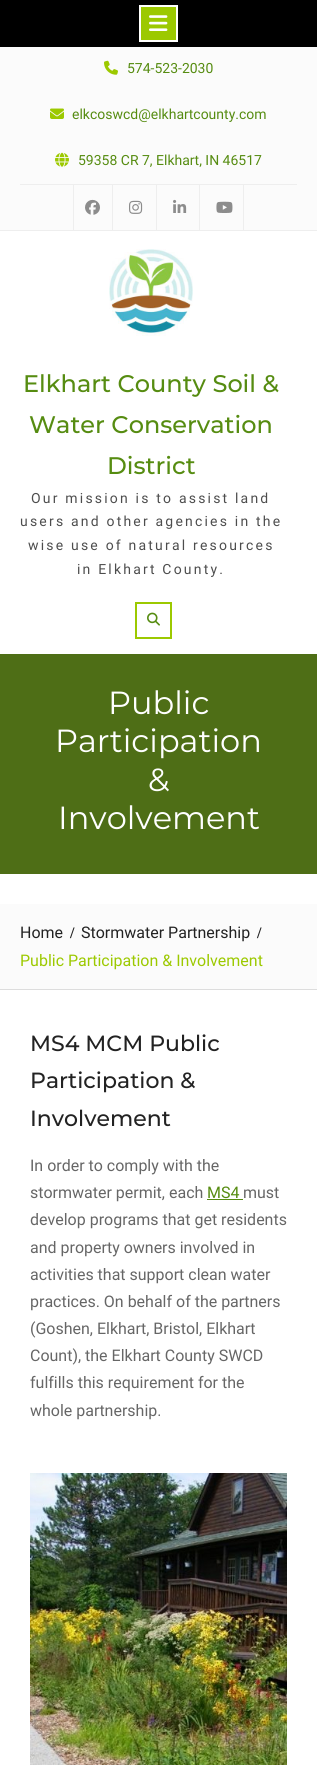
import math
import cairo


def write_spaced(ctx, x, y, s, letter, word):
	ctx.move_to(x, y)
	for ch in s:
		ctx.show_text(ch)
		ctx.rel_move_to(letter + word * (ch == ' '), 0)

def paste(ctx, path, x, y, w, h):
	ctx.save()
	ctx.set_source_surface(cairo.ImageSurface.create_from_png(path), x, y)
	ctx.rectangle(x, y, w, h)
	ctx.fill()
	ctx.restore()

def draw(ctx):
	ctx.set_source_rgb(1, 1, 1)
	ctx.paint()
	ctx.set_source_rgb(0, 0, 0)
	ctx.rectangle(0, 0, 317, 47)
	ctx.fill()
	ctx.set_source_rgb(0.612, 0.788, 0)
	ctx.rectangle(140, 6, 37, 35)
	ctx.fill_preserve()
	ctx.set_source_rgb(1, 1, 0.996)
	ctx.stroke()
	paste(ctx, 'media/1.png', 149, 15, 19, 16)
	ctx.set_source_rgb(0.984, 0.984, 0.984)
	ctx.rectangle(0, 47, 317, 183)
	ctx.fill()
	ctx.set_source_rgb(0.933, 0.933, 0.933)
	ctx.rectangle(0, 230, 317, 1)
	ctx.fill()
	paste(ctx, 'media/2.png', 104, 60, 14, 15)
	ctx.select_font_face('Roboto')
	ctx.set_font_size(14)
	ctx.set_source_rgb(0.337, 0.549, 0.067)
	ctx.move_to(127, 73)
	ctx.show_text('574-523-2030')
	paste(ctx, 'media/3.png', 50, 108, 14, 11)
	ctx.move_to(72, 119)
	ctx.show_text('elkcoswcd@elkhartcounty.com')
	paste(ctx, 'media/4.png', 55, 152, 14, 15)
	ctx.move_to(78, 165)
	ctx.show_text('59358 CR 7, Elkhart, IN 46517')
	ctx.set_source_rgb(0.933, 0.933, 0.933)
	ctx.rectangle(20, 184, 277, 1)
	ctx.rectangle(112, 185, 1, 45)
	ctx.rectangle(73, 185, 1, 45)
	ctx.fill()
	paste(ctx, 'media/5.png', 85, 199, 15, 16)
	ctx.rectangle(156, 185, 1, 45)
	ctx.fill()
	paste(ctx, 'media/6.png', 129, 200, 14, 14)
	ctx.rectangle(199, 185, 1, 45)
	ctx.fill()
	paste(ctx, 'media/7.png', 173, 199, 14, 14)
	ctx.rectangle(243, 185, 1, 45)
	ctx.fill()
	paste(ctx, 'media/8.png', 216, 201, 17, 12)
	paste(ctx, 'media/9.png', 109, 249, 84, 87)
	ctx.select_font_face('Montserrat Medium')
	ctx.set_font_size(24)
	ctx.set_source_rgb(0.337, 0.549, 0.067)
	for x, y, s in [
		(23, 392, 'Elkhart County Soil &'),
		(29, 433, 'Water Conservation'),
		(107, 474, 'District'),
	]:
		ctx.move_to(x, y)
		ctx.show_text(s)
	ctx.select_font_face('Roboto')
	ctx.set_font_size(14)
	ctx.set_source_rgb(0.302, 0.302, 0.302)
	for x, y, s in [
		(31, 503, 'Our mission is to assist land'),
		(20, 526, 'users and other agencies in the'),
		(28, 550, 'wise use of natural resources'),
		(77, 574, 'in Elkhart County.'),
	]:
		write_spaced(ctx, x, y, s, 2.2, 0)
	ctx.rectangle(136, 603, 35, 35)
	ctx.set_source_rgb(0.612, 0.788, 0)
	ctx.stroke()
	paste(ctx, 'media/10.png', 147, 612, 13, 14)
	ctx.set_source_rgb(0.306, 0.431, 0.086)
	ctx.rectangle(0, 654, 317, 220)
	ctx.fill()
	ctx.select_font_face('Montserrat')
	ctx.set_font_size(32)
	ctx.set_source_rgb(1, 1, 1)
	for x, y, s in [
		(108, 714, 'Public'),
		(55, 752, 'Participation'),
		(148, 791, '&'),
		(58, 829, 'Involvement'),
	]:
		ctx.move_to(x, y)
		ctx.show_text(s)
	ctx.set_source_rgb(0.984, 0.984, 0.984)
	ctx.rectangle(0, 904, 317, 85)
	ctx.fill()
	ctx.set_source_rgb(0.867, 0.867, 0.867)
	ctx.rectangle(0, 989, 317, 1)
	ctx.fill()
	ctx.select_font_face('Roboto')
	ctx.set_font_size(16)
	ctx.set_source_rgb(0.133, 0.133, 0.133)
	ctx.move_to(20, 938)
	ctx.show_text('Home')
	ctx.select_font_face('Liberation Serif', cairo.FONT_SLANT_NORMAL, cairo.FONT_WEIGHT_BOLD)
	ctx.move_to(70, 938)
	ctx.show_text('/')
	ctx.select_font_face('Roboto')
	ctx.move_to(81, 938)
	ctx.show_text('Stormwater Partnership')
	ctx.select_font_face('Liberation Serif', cairo.FONT_SLANT_NORMAL, cairo.FONT_WEIGHT_BOLD)
	ctx.move_to(257, 938)
	ctx.show_text('/')
	ctx.select_font_face('Roboto')
	ctx.set_source_rgb(0.612, 0.788, 0)
	ctx.move_to(20, 966)
	ctx.show_text('Public Participation & Involvement')
	ctx.select_font_face('Montserrat Medium')
	ctx.set_font_size(22)
	ctx.set_source_rgb(0.133, 0.133, 0.133)
	for x, y, s in [
		(30, 1051, 'MS4 MCM Public'),
		(30, 1088, 'Participation &'),
		(30, 1126, 'Involvement'),
	]:
		ctx.move_to(x, y)
		ctx.show_text(s)
	ctx.select_font_face('Roboto')
	ctx.set_font_size(16)
	ctx.set_source_rgb(0.4, 0.4, 0.4)
	ctx.move_to(30, 1171)
	ctx.show_text('In order to comply with the')
	ctx.move_to(30, 1198)
	ctx.show_text('stormwater permit, each')
	ctx.set_source_rgb(0.337, 0.549, 0.067)
	ctx.move_to(207, 1198)
	ctx.show_text('MS4')
	ctx.rectangle(207, 1199, 36, 1)
	ctx.fill()
	ctx.set_source_rgb(0.4, 0.4, 0.4)
	for x, y, s in [
		(243, 1198, 'must'),
		(30, 1225, 'develop programs that get residents'),
		(30, 1253, 'and property owners involved in'),
		(30, 1280, 'activities that support clean water'),
		(30, 1307, 'practices. On behalf of the partners'),
		(30, 1334, '(Goshen, Elkhart, Bristol, Elkhart'),
		(30, 1361, 'Count), the Elkhart County SWCD'),
		(30, 1388, 'fulfills this requirement for the'),
		(30, 1416, 'whole partnership.'),
	]:
		ctx.move_to(x, y)
		ctx.show_text(s)
	paste(ctx, 'media/11.png', 30, 1473, 257, 292)


surface = cairo.ImageSurface(cairo.FORMAT_RGB24, 317, 1765)
ctx = cairo.Context(surface)
options = cairo.FontOptions()
options.set_hint_metrics(cairo.HINT_METRICS_OFF)
options.set_hint_style(cairo.HINT_STYLE_NONE)
ctx.set_font_options(options)
ctx.set_miter_limit(4)
draw(ctx)
surface.write_to_png('image.png')
